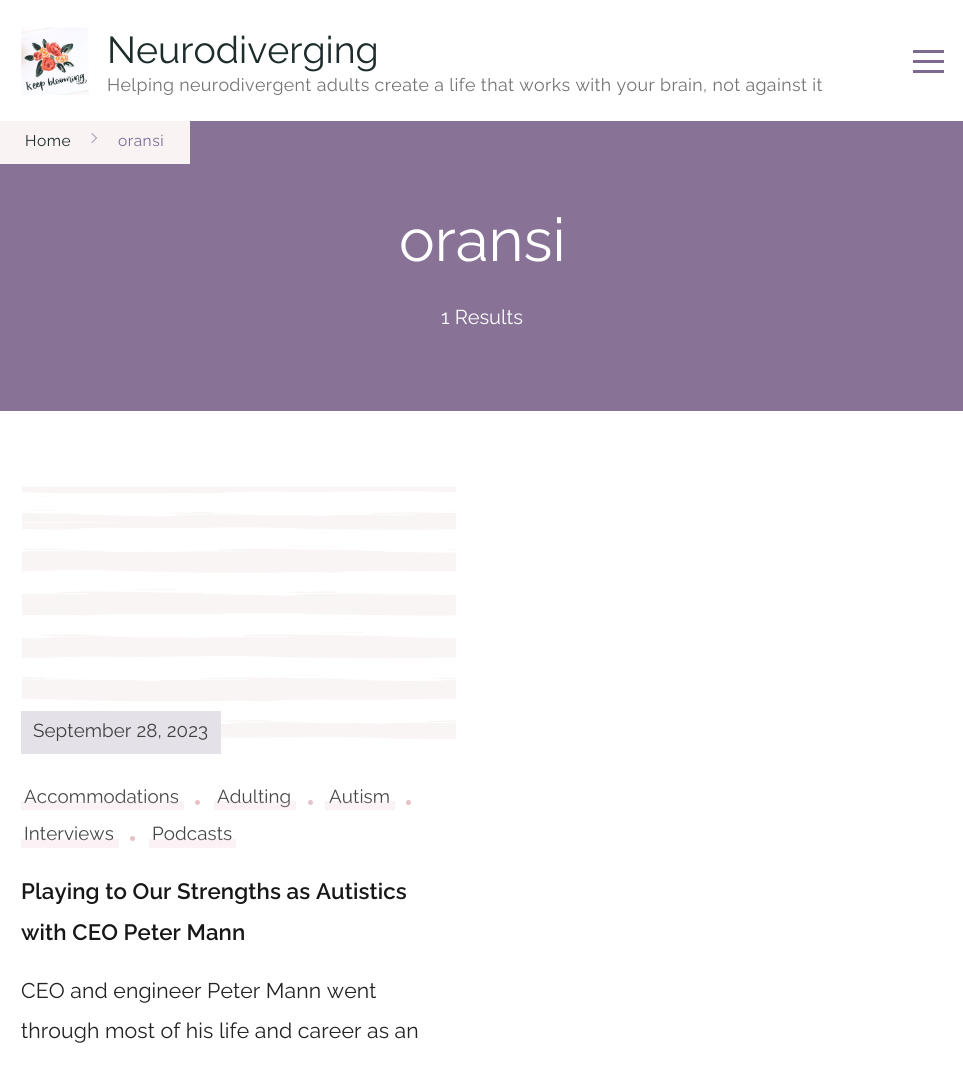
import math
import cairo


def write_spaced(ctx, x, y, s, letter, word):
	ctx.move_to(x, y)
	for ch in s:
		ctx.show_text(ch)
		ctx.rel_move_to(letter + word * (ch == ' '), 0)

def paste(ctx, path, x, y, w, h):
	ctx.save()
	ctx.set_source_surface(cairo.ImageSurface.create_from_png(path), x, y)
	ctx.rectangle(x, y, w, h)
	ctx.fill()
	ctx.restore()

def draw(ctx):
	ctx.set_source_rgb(1, 1, 1)
	ctx.paint()
	paste(ctx, 'media/1.png', 21, 27, 68, 68)
	ctx.select_font_face('Raleway')
	ctx.set_font_size(37.5)
	ctx.set_source_rgb(0.118, 0.173, 0.173)
	ctx.move_to(107, 63)
	ctx.show_text('Neurodiverging')
	ctx.set_font_size(17.8)
	ctx.set_source_rgb(0.455, 0.455, 0.455)
	write_spaced(ctx, 107, 91, 'Helping neurodivergent adults create a life that works with your brain, not against it', 0.38, 0)
	ctx.set_source_rgb(0.49, 0.416, 0.569)
	ctx.rectangle(913, 50, 31, 3)
	ctx.rectangle(913, 60, 31, 3)
	ctx.rectangle(913, 70, 31, 3)
	ctx.fill()
	ctx.set_source_rgb(0.533, 0.451, 0.592)
	ctx.rectangle(0, 121, 963, 290)
	ctx.fill()
	ctx.set_source_rgb(0.98, 0.953, 0.957)
	ctx.rectangle(0, 121, 190, 43)
	ctx.fill()
	ctx.set_font_size(15.5)
	ctx.set_source_rgb(0.118, 0.173, 0.173)
	write_spaced(ctx, 25, 146, 'Home', 0.5, 0)
	ctx.new_path()
	ctx.move_to(92, 133.5)
	ctx.line_to(96.5, 138)
	ctx.line_to(92, 142.5)
	ctx.set_source_rgb(0.706, 0.651, 0.741)
	ctx.set_line_width(1.2)
	ctx.set_line_cap(cairo.LINE_CAP_ROUND)
	ctx.stroke()
	ctx.set_source_rgb(0.49, 0.416, 0.569)
	write_spaced(ctx, 118, 146, 'oransi', 0.5, 0)
	ctx.set_font_size(60)
	ctx.set_source_rgb(1, 1, 1)
	ctx.move_to(399, 261)
	ctx.show_text('oransi')
	ctx.set_font_size(20)
	ctx.move_to(441, 324)
	ctx.show_text('1 Results')
	paste(ctx, 'media/2.png', 22, 486, 434, 257)
	ctx.set_source_rgb(0.898, 0.882, 0.914)
	ctx.rectangle(21, 711, 200, 43)
	ctx.fill()
	ctx.set_font_size(18.75)
	ctx.set_source_rgb(0.251, 0.247, 0.255)
	write_spaced(ctx, 33, 737, 'September 28, 2023', 0.1, 0)
	ctx.set_source_rgb(0.271, 0.271, 0.271)
	write_spaced(ctx, 24, 803, 'Accommodations', 0.1, 0)
	ctx.set_source_rgb(0.91, 0.757, 0.784)
	ctx.new_path()
	ctx.arc(197.5, 802.5, 2.5, 0, 2 * math.pi)
	ctx.fill()
	ctx.set_source_rgba(0.91, 0.757, 0.784, 0.2)
	ctx.rectangle(21, 801, 163, 9)
	ctx.fill()
	ctx.set_source_rgb(0.271, 0.271, 0.271)
	write_spaced(ctx, 217, 803, 'Adulting', 0.1, 0)
	ctx.set_source_rgb(0.91, 0.757, 0.784)
	ctx.new_path()
	ctx.arc(310.5, 802.5, 2.5, 0, 2 * math.pi)
	ctx.fill()
	ctx.set_source_rgba(0.91, 0.757, 0.784, 0.2)
	ctx.rectangle(214, 801, 82, 9)
	ctx.fill()
	ctx.set_source_rgb(0.271, 0.271, 0.271)
	write_spaced(ctx, 329, 803, 'Autism', 0.1, 0)
	ctx.set_source_rgb(0.91, 0.757, 0.784)
	ctx.new_path()
	ctx.arc(408.5, 802.5, 2.5, 0, 2 * math.pi)
	ctx.fill()
	ctx.set_source_rgba(0.91, 0.757, 0.784, 0.2)
	ctx.rectangle(325, 801, 70, 9)
	ctx.fill()
	ctx.set_source_rgb(0.271, 0.271, 0.271)
	write_spaced(ctx, 24, 840, 'Interviews', 0.1, 0)
	ctx.set_source_rgb(0.91, 0.757, 0.784)
	ctx.new_path()
	ctx.arc(132.5, 838.5, 2.5, 0, 2 * math.pi)
	ctx.fill()
	ctx.set_source_rgba(0.91, 0.757, 0.784, 0.2)
	ctx.rectangle(21, 839, 98, 9)
	ctx.fill()
	ctx.set_source_rgb(0.271, 0.271, 0.271)
	write_spaced(ctx, 152, 840, 'Podcasts', 0.1, 0)
	ctx.set_source_rgba(0.91, 0.757, 0.784, 0.2)
	ctx.rectangle(149, 839, 87, 9)
	ctx.fill()
	ctx.select_font_face('Raleway SemiBold')
	ctx.set_font_size(22.25)
	ctx.set_source_rgb(0.09, 0.09, 0.09)
	write_spaced(ctx, 21, 899, 'Playing to Our Strengths as Autistics', 0.1, 0)
	write_spaced(ctx, 21, 940, 'with CEO Peter Mann', 0.1, 0)
	ctx.select_font_face('Raleway')
	ctx.set_font_size(21.25)
	ctx.set_source_rgb(0.137, 0.137, 0.137)
	write_spaced(ctx, 21, 998, 'CEO and engineer Peter Mann went', 0.1, 0)
	write_spaced(ctx, 21, 1038, 'through most of his life and career as an', 0.1, 0)


surface = cairo.ImageSurface(cairo.FORMAT_RGB24, 963, 1072)
ctx = cairo.Context(surface)
options = cairo.FontOptions()
options.set_hint_metrics(cairo.HINT_METRICS_OFF)
options.set_hint_style(cairo.HINT_STYLE_NONE)
ctx.set_font_options(options)
ctx.set_miter_limit(4)
draw(ctx)
surface.write_to_png('image.png')
